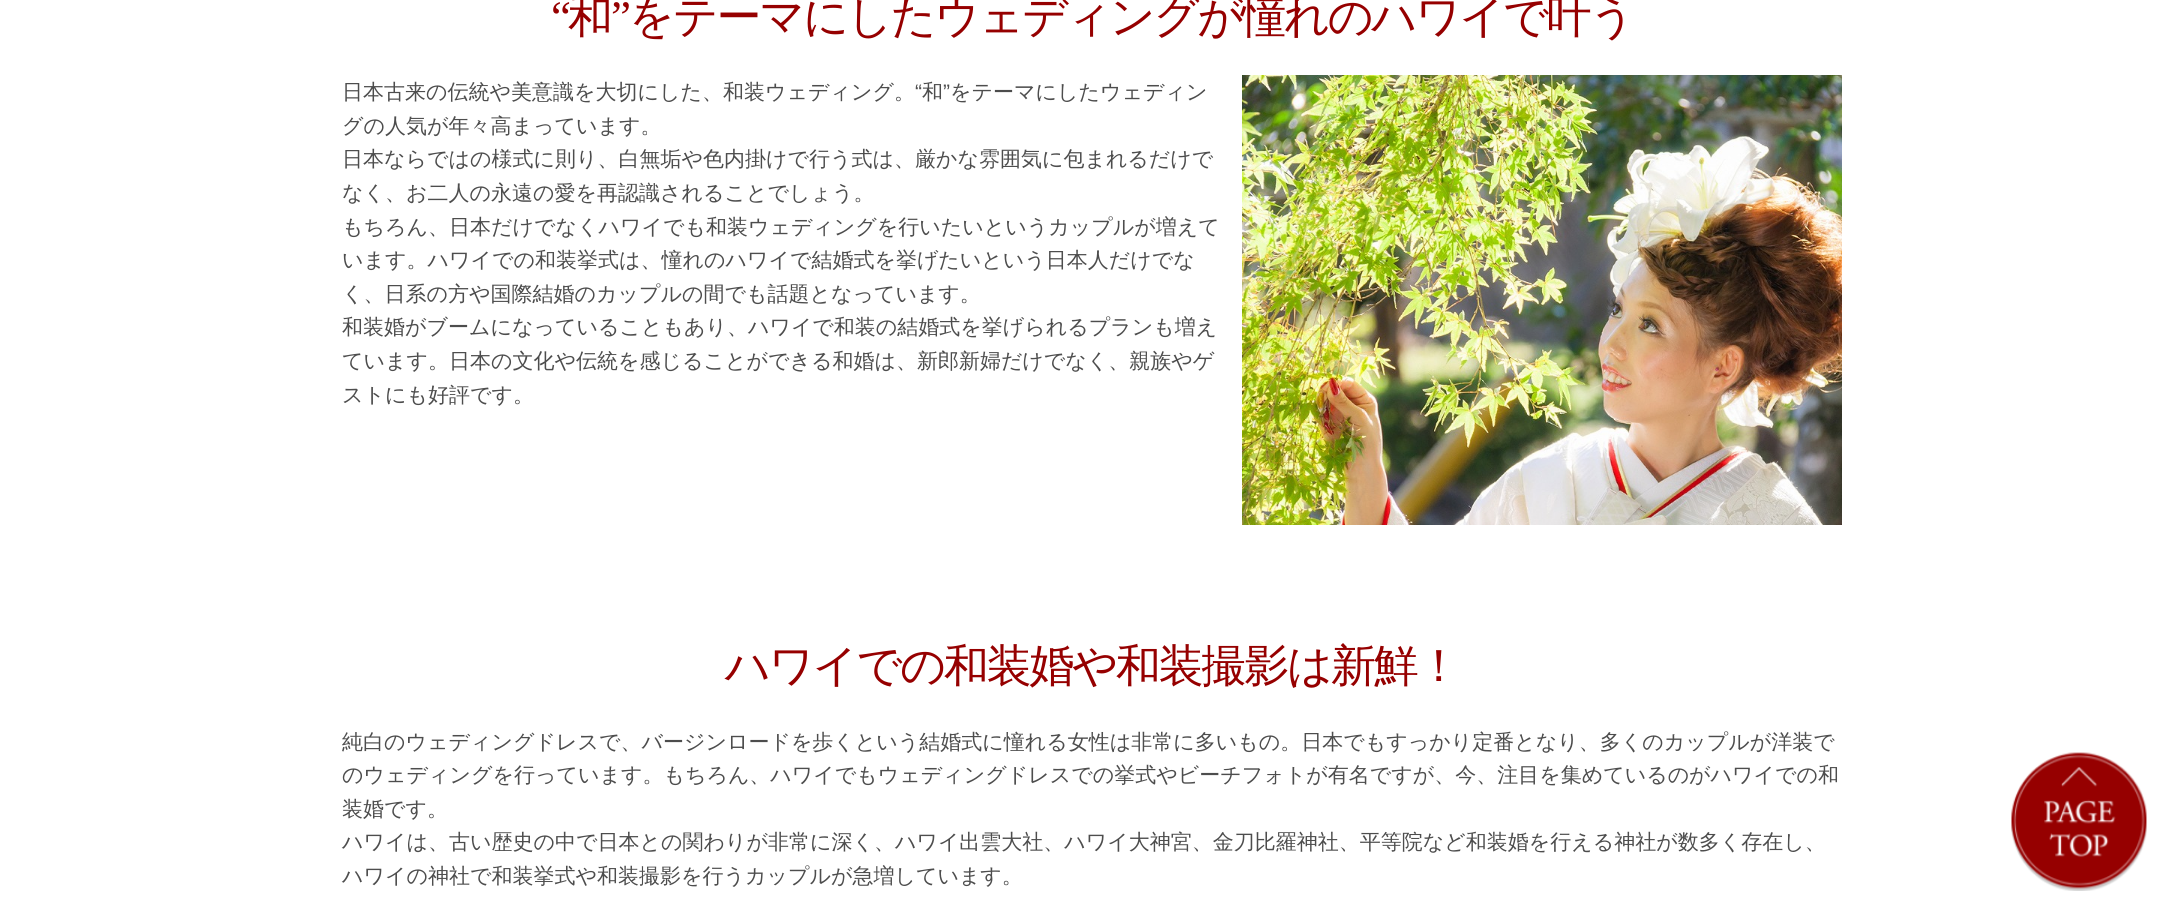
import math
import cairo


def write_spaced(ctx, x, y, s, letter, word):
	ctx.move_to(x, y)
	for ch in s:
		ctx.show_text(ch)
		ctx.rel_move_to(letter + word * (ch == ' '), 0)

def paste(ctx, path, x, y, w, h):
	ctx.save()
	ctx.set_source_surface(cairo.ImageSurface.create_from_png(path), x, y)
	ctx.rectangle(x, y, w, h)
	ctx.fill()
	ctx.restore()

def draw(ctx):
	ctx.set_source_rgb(1, 1, 1)
	ctx.paint()
	ctx.select_font_face('Liberation Serif')
	ctx.set_font_size(45)
	ctx.set_source_rgb(0.588, 0, 0)
	write_spaced(ctx, 551, 32, '“', -2.25, 0)
	ctx.select_font_face('WenQuanYi Zen Hei Medium')
	write_spaced(ctx, 568, 32, '和', -2.25, 0)
	ctx.select_font_face('Liberation Serif')
	write_spaced(ctx, 611, 32, '”', -2.25, 0)
	ctx.select_font_face('WenQuanYi Zen Hei Medium')
	write_spaced(ctx, 629, 32, 'をテーマにしたウェディングが憧れのハワイで叶う', -2.25, 0)
	ctx.set_font_size(21)
	ctx.set_source_rgb(0.302, 0.302, 0.302)
	ctx.move_to(342, 99)
	ctx.show_text('日本古来の伝統や美意識を大切にした、和装ウェディング。')
	ctx.select_font_face('Liberation Sans')
	ctx.move_to(915, 99)
	ctx.show_text('“')
	ctx.select_font_face('WenQuanYi Zen Hei Medium')
	ctx.move_to(922, 99)
	ctx.show_text('和')
	ctx.select_font_face('Liberation Sans')
	ctx.move_to(943, 99)
	ctx.show_text('”')
	ctx.select_font_face('WenQuanYi Zen Hei Medium')
	for x, y, s in [
		(950, 99, 'をテーマにしたウェディン'),
		(342, 133, 'グの人気が年々高まっています。'),
		(342, 166, '日本ならではの様式に則り、白無垢や色内掛けで行う式は、厳かな雰囲気に包まれるだけで'),
		(342, 200, 'なく、お二人の永遠の愛を再認識されることでしょう。'),
		(342, 234, 'もちろん、日本だけでなくハワイでも和装ウェディングを行いたいというカップルが増えて'),
		(342, 267, 'います。ハワイでの和装挙式は、憧れのハワイで結婚式を挙げたいという日本人だけでな'),
		(342, 301, 'く、日系の方や国際結婚のカップルの間でも話題となっています。'),
		(342, 334, '和装婚がブームになっていることもあり、ハワイで和装の結婚式を挙げられるプランも増え'),
		(342, 368, 'ています。日本の文化や伝統を感じることができる和婚は、新郎新婦だけでなく、親族やゲ'),
		(342, 402, 'ストにも好評です。'),
	]:
		ctx.move_to(x, y)
		ctx.show_text(s)
	paste(ctx, 'media/1.png', 1242, 75, 600, 450)
	ctx.set_font_size(45)
	ctx.set_source_rgb(0.588, 0, 0)
	write_spaced(ctx, 725, 681, 'ハワイでの和装婚や和装撮影は新鮮！', -2.25, 0)
	ctx.set_font_size(21)
	ctx.set_source_rgb(0.302, 0.302, 0.302)
	for x, y, s in [
		(342, 749, '純白のウェディングドレスで、バージンロードを歩くという結婚式に憧れる女性は非常に多いもの。日本でもすっかり定番となり、多くのカップルが洋装で'),
		(342, 782, 'のウェディングを行っています。もちろん、ハワイでもウェディングドレスでの挙式やビーチフォトが有名ですが、今、注目を集めているのがハワイでの和'),
		(342, 816, '装婚です。'),
		(342, 849, 'ハワイは、古い歴史の中で日本との関わりが非常に深く、ハワイ出雲大社、ハワイ大神宮、金刀比羅神社、平等院など和装婚を行える神社が数多く存在し、'),
		(342, 883, 'ハワイの神社で和装挙式や和装撮影を行うカップルが急増しています。'),
	]:
		ctx.move_to(x, y)
		ctx.show_text(s)
	paste(ctx, 'media/2.png', 2011, 752, 136, 139)


surface = cairo.ImageSurface(cairo.FORMAT_RGB24, 2183, 905)
ctx = cairo.Context(surface)
options = cairo.FontOptions()
options.set_hint_metrics(cairo.HINT_METRICS_OFF)
options.set_hint_style(cairo.HINT_STYLE_NONE)
ctx.set_font_options(options)
ctx.set_miter_limit(4)
draw(ctx)
surface.write_to_png('image.png')
